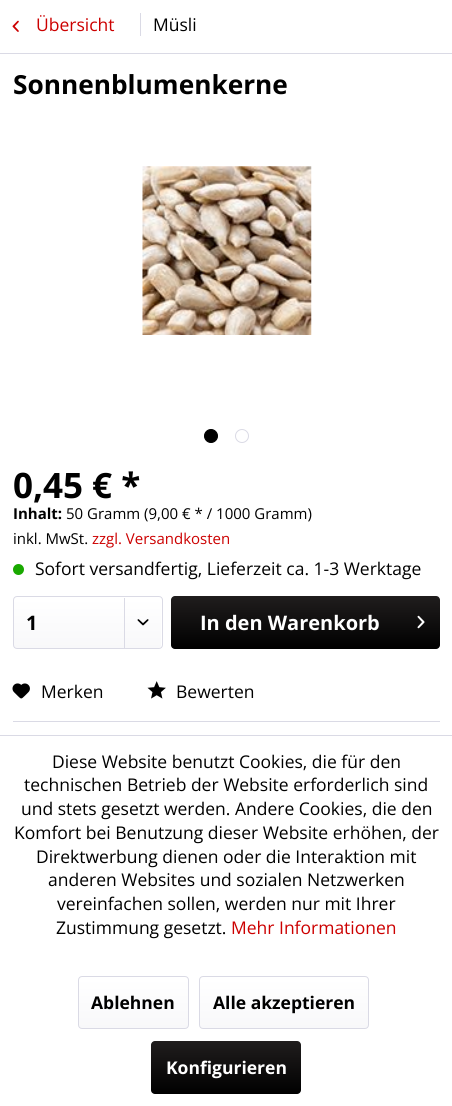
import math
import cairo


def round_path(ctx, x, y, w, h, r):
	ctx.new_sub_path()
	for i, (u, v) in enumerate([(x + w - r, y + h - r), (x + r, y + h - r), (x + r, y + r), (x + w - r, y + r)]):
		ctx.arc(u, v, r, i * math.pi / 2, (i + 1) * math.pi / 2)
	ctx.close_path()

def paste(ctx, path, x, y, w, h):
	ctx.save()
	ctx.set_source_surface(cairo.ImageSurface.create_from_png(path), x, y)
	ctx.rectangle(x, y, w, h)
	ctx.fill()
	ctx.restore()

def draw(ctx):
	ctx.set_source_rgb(1, 1, 1)
	ctx.paint()
	ctx.set_source_rgb(0.855, 0.855, 0.898)
	ctx.rectangle(0, 53, 452, 1)
	ctx.fill()
	paste(ctx, 'media/1.png', 12, 20, 7, 12)
	ctx.select_font_face('Open Sans')
	ctx.set_font_size(17.5)
	ctx.set_source_rgb(0.8, 0, 0)
	ctx.move_to(36, 31)
	ctx.show_text('Übersicht')
	ctx.set_source_rgb(0.855, 0.855, 0.898)
	ctx.rectangle(140, 13, 1, 23)
	ctx.fill()
	ctx.set_source_rgb(0, 0, 0)
	ctx.move_to(153, 31)
	ctx.show_text('Müsli')
	ctx.select_font_face('Open Sans', cairo.FONT_SLANT_NORMAL, cairo.FONT_WEIGHT_BOLD)
	ctx.set_font_size(26.25)
	ctx.move_to(13, 94)
	ctx.show_text('Sonnenblumenkerne')
	paste(ctx, 'media/2.png', 142, 166, 170, 169)
	ctx.arc(211, 436, 6.5, 0, 2 * math.pi)
	ctx.fill_preserve()
	ctx.set_line_width(1)
	ctx.stroke()
	ctx.arc(242, 436, 6.5, 0, 2 * math.pi)
	ctx.set_source_rgb(0.855, 0.855, 0.898)
	ctx.stroke()
	ctx.set_font_size(35)
	ctx.set_source_rgb(0, 0, 0)
	ctx.move_to(13, 498)
	ctx.show_text('0,45 € *')
	ctx.set_font_size(15)
	ctx.move_to(13, 519)
	ctx.show_text('Inhalt:')
	ctx.select_font_face('Open Sans')
	ctx.move_to(66, 519)
	ctx.show_text('50 Gramm (9,00 € * / 1000 Gramm)')
	ctx.move_to(13, 544)
	ctx.show_text('inkl. MwSt.')
	ctx.set_source_rgb(0.8, 0, 0)
	ctx.move_to(92, 544)
	ctx.show_text('zzgl. Versandkosten')
	ctx.set_source_rgb(0.098, 0.663, 0)
	ctx.new_path()
	ctx.arc(18.5, 569.5, 5.5, 0, 2 * math.pi)
	ctx.fill()
	ctx.set_font_size(17.5)
	ctx.set_source_rgb(0, 0, 0)
	ctx.move_to(35, 575)
	ctx.show_text('Sofort versandfertig, Lieferzeit ca. 1-3 Werktage')
	gradient = cairo.LinearGradient(88, 598, 88, 648)
	gradient.add_color_stop_rgba(0, 1, 1, 1, 1)
	gradient.add_color_stop_rgba(1, 0.973, 0.973, 0.98, 1)
	ctx.set_source(gradient)
	round_path(ctx, 14, 598, 147, 50, 2.5)
	ctx.fill()
	round_path(ctx, 13.5, 596.5, 149, 52, 3.5)
	ctx.set_source_rgb(0.855, 0.855, 0.898)
	ctx.stroke()
	ctx.select_font_face('Open Sans', cairo.FONT_SLANT_NORMAL, cairo.FONT_WEIGHT_BOLD)
	ctx.set_font_size(20)
	ctx.set_source_rgb(0, 0, 0)
	ctx.move_to(26, 630)
	ctx.show_text('1')
	ctx.set_source_rgb(0.855, 0.855, 0.898)
	ctx.rectangle(124, 598, 1, 50)
	ctx.fill()
	paste(ctx, 'media/3.png', 137, 619, 12, 7)
	gradient = cairo.LinearGradient(306, 596, 306, 649)
	gradient.add_color_stop_rgba(0, 0.125, 0.114, 0.114, 1)
	gradient.add_color_stop_rgba(1, 0, 0, 0, 1)
	ctx.set_source(gradient)
	round_path(ctx, 171, 596, 269, 53, 4)
	ctx.fill()
	ctx.set_source_rgb(1, 1, 1)
	ctx.move_to(200, 630)
	ctx.show_text('In den Warenkorb')
	paste(ctx, 'media/4.png', 417, 615, 8, 14)
	ctx.set_source_rgb(0.855, 0.855, 0.898)
	ctx.rectangle(13, 721, 427, 1)
	ctx.fill()
	paste(ctx, 'media/5.png', 12, 683, 18, 16)
	ctx.select_font_face('Open Sans')
	ctx.set_font_size(17.5)
	ctx.set_source_rgb(0, 0, 0)
	ctx.move_to(41, 698)
	ctx.show_text('Merken')
	paste(ctx, 'media/6.png', 147, 681, 19, 18)
	ctx.move_to(176, 698)
	ctx.show_text('Bewerten')
	ctx.set_source_rgb(0.855, 0.855, 0.898)
	ctx.rectangle(0, 735, 452, 1)
	ctx.fill()
	ctx.set_source_rgb(0, 0, 0)
	for x, y, s in [
		(52, 768, 'Diese Website benutzt Cookies, die für den'),
		(24, 791, 'technischen Betrieb der Website erforderlich sind'),
		(21, 815, 'und stets gesetzt werden. Andere Cookies, die den'),
		(14, 839, 'Komfort bei Benutzung dieser Website erhöhen, der'),
		(36, 863, 'Direktwerbung dienen oder die Interaktion mit'),
		(48, 886, 'anderen Websites und sozialen Netzwerken'),
		(57, 910, 'vereinfachen sollen, werden nur mit Ihrer'),
		(56, 934, 'Zustimmung gesetzt.'),
	]:
		ctx.move_to(x, y)
		ctx.show_text(s)
	ctx.set_source_rgb(0.8, 0, 0)
	ctx.move_to(231, 934)
	ctx.show_text('Mehr Informationen')
	gradient = cairo.LinearGradient(133, 978, 133, 1028)
	gradient.add_color_stop_rgba(0, 1, 1, 1, 1)
	gradient.add_color_stop_rgba(1, 0.973, 0.973, 0.98, 1)
	ctx.set_source(gradient)
	round_path(ctx, 79, 978, 109, 50, 2.5)
	ctx.fill()
	round_path(ctx, 78.5, 976.5, 110, 52, 3.5)
	ctx.set_source_rgb(0.855, 0.855, 0.898)
	ctx.stroke()
	ctx.select_font_face('Open Sans', cairo.FONT_SLANT_NORMAL, cairo.FONT_WEIGHT_BOLD)
	ctx.set_source_rgb(0, 0, 0)
	ctx.move_to(91, 1009)
	ctx.show_text('Ablehnen')
	gradient = cairo.LinearGradient(284, 978, 284, 1028)
	gradient.add_color_stop_rgba(0, 1, 1, 1, 1)
	gradient.add_color_stop_rgba(1, 0.973, 0.973, 0.98, 1)
	ctx.set_source(gradient)
	round_path(ctx, 200, 978, 168, 50, 2.5)
	ctx.fill()
	round_path(ctx, 199.5, 976.5, 169, 52, 3.5)
	ctx.set_source_rgb(0.855, 0.855, 0.898)
	ctx.stroke()
	ctx.set_source_rgb(0, 0, 0)
	ctx.move_to(213, 1009)
	ctx.show_text('Alle akzeptieren')
	gradient = cairo.LinearGradient(226, 1041, 226, 1094)
	gradient.add_color_stop_rgba(0, 0.125, 0.114, 0.114, 1)
	gradient.add_color_stop_rgba(1, 0, 0, 0, 1)
	ctx.set_source(gradient)
	round_path(ctx, 151, 1041, 150, 53, 4)
	ctx.fill()
	ctx.set_source_rgb(1, 1, 1)
	ctx.move_to(166, 1074)
	ctx.show_text('Konfigurieren')


surface = cairo.ImageSurface(cairo.FORMAT_RGB24, 452, 1106)
ctx = cairo.Context(surface)
options = cairo.FontOptions()
options.set_hint_metrics(cairo.HINT_METRICS_OFF)
options.set_hint_style(cairo.HINT_STYLE_NONE)
ctx.set_font_options(options)
ctx.set_miter_limit(4)
draw(ctx)
surface.write_to_png('image.png')
